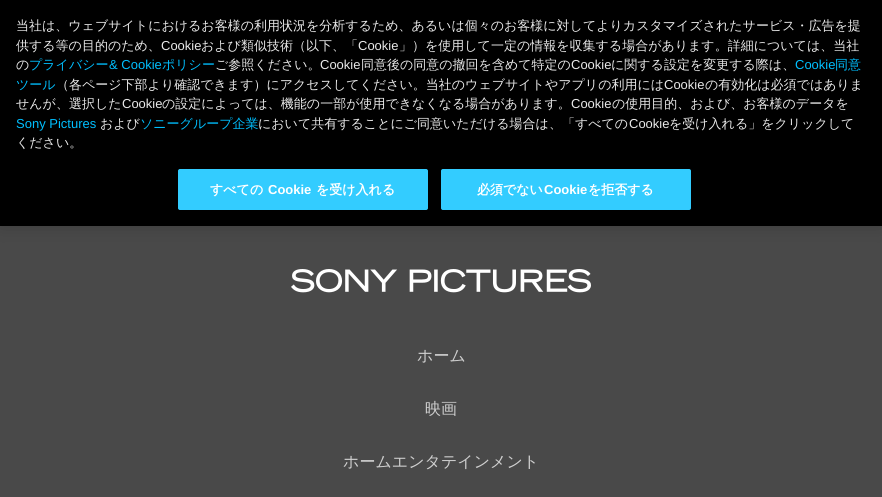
import math
import cairo


def round_path(ctx, x, y, w, h, r):
	ctx.new_sub_path()
	for i, (u, v) in enumerate([(x + w - r, y + h - r), (x + r, y + h - r), (x + r, y + r), (x + w - r, y + r)]):
		ctx.arc(u, v, r, i * math.pi / 2, (i + 1) * math.pi / 2)
	ctx.close_path()

def blur_box(ctx, x, y, w, h, r, blur, alpha):
	ctx.push_group_with_content(cairo.CONTENT_ALPHA)
	ctx.set_operator(cairo.OPERATOR_SOURCE)
	for i in range(15, -16, -2):
		e = blur * i / 6
		if min(w, h) + 2 * e > 0:
			ctx.set_source_rgba(0, 0, 0, alpha * math.erfc((i - 1) / 8.5) / 2)
			round_path(ctx, x - e, y - e, w + 2 * e, h + 2 * e, max(0, min(r + e + blur * .6, min(w, h) / 2 + e)))
			ctx.fill()
	ctx.mask(ctx.pop_group())

def paste(ctx, path, x, y, w, h):
	ctx.save()
	ctx.set_source_surface(cairo.ImageSurface.create_from_png(path), x, y)
	ctx.rectangle(x, y, w, h)
	ctx.fill()
	ctx.restore()

def draw(ctx):
	ctx.set_source_rgb(0.286, 0.286, 0.286)
	ctx.paint()
	ctx.set_source_rgb(0, 0, 0)
	blur_box(ctx, 0, 0, 882, 226, 0, 9, 0.2)
	ctx.set_source_rgb(0, 0, 0)
	ctx.rectangle(0, 0, 882, 226)
	ctx.fill()
	ctx.select_font_face('WenQuanYi Zen Hei Medium')
	ctx.set_font_size(13)
	ctx.set_source_rgb(0.914, 0.914, 0.914)
	ctx.move_to(16, 30)
	ctx.show_text('当社は、ウェブサイトにおけるお客様の利用状況を分析するため、あるいは個々のお客様に対してよりカスタマイズされたサービス・広告を提')
	ctx.move_to(16, 50)
	ctx.show_text('供する等の目的のため、')
	ctx.select_font_face('Liberation Sans')
	ctx.move_to(161, 50)
	ctx.show_text('Cookie')
	ctx.select_font_face('WenQuanYi Zen Hei Medium')
	ctx.move_to(201, 50)
	ctx.show_text('および類似技術（以下、「')
	ctx.select_font_face('Liberation Sans')
	ctx.move_to(358, 50)
	ctx.show_text('Cookie')
	ctx.select_font_face('WenQuanYi Zen Hei Medium')
	ctx.move_to(399, 50)
	ctx.show_text('」）を使用して一定の情報を収集する場合があります。詳細については、当社')
	ctx.move_to(16, 69)
	ctx.show_text('の')
	ctx.set_source_rgb(0, 0.749, 1)
	ctx.move_to(29, 69)
	ctx.show_text('プライバシー')
	ctx.select_font_face('Liberation Sans')
	ctx.move_to(109, 69)
	ctx.show_text('& Cookie')
	ctx.select_font_face('WenQuanYi Zen Hei Medium')
	ctx.move_to(162, 69)
	ctx.show_text('ポリシー')
	ctx.set_source_rgb(0.914, 0.914, 0.914)
	ctx.move_to(215, 69)
	ctx.show_text('ご参照ください。')
	ctx.select_font_face('Liberation Sans')
	ctx.move_to(320, 69)
	ctx.show_text('Cookie')
	ctx.select_font_face('WenQuanYi Zen Hei Medium')
	ctx.move_to(361, 69)
	ctx.show_text('同意後の同意の撤回を含めて特定の')
	ctx.select_font_face('Liberation Sans')
	ctx.move_to(571, 69)
	ctx.show_text('Cookie')
	ctx.select_font_face('WenQuanYi Zen Hei Medium')
	ctx.move_to(611, 69)
	ctx.show_text('に関する設定を変更する際は、')
	ctx.select_font_face('Liberation Sans')
	ctx.set_source_rgb(0, 0.749, 1)
	ctx.move_to(795, 69)
	ctx.show_text('Cookie')
	ctx.select_font_face('WenQuanYi Zen Hei Medium')
	ctx.move_to(835, 69)
	ctx.show_text('同意')
	ctx.move_to(16, 89)
	ctx.show_text('ツール')
	ctx.set_source_rgb(0.914, 0.914, 0.914)
	ctx.move_to(56, 89)
	ctx.show_text('（各ページ下部より確認できます）にアクセスしてください。当社のウェブサイトやアプリの利用には')
	ctx.select_font_face('Liberation Sans')
	ctx.move_to(664, 89)
	ctx.show_text('Cookie')
	ctx.select_font_face('WenQuanYi Zen Hei Medium')
	ctx.move_to(705, 89)
	ctx.show_text('の有効化は必須ではありま')
	ctx.move_to(16, 108)
	ctx.show_text('せんが、選択した')
	ctx.select_font_face('Liberation Sans')
	ctx.move_to(122, 108)
	ctx.show_text('Cookie')
	ctx.select_font_face('WenQuanYi Zen Hei Medium')
	ctx.move_to(162, 108)
	ctx.show_text('の設定によっては、機能の一部が使用できなくなる場合があります。')
	ctx.select_font_face('Liberation Sans')
	ctx.move_to(571, 108)
	ctx.show_text('Cookie')
	ctx.select_font_face('WenQuanYi Zen Hei Medium')
	ctx.move_to(612, 108)
	ctx.show_text('の使用目的、および、お客様のデータを')
	ctx.select_font_face('Liberation Sans')
	ctx.set_source_rgb(0, 0.749, 1)
	ctx.move_to(16, 128)
	ctx.show_text('Sony Pictures')
	ctx.select_font_face('WenQuanYi Zen Hei Medium')
	ctx.set_source_rgb(0.914, 0.914, 0.914)
	ctx.move_to(100, 128)
	ctx.show_text('および')
	ctx.set_source_rgb(0, 0.749, 1)
	ctx.move_to(140, 128)
	ctx.show_text('ソニーグループ企業')
	ctx.set_source_rgb(0.914, 0.914, 0.914)
	ctx.move_to(258, 128)
	ctx.show_text('において共有することにご同意いただける場合は、「すべての')
	ctx.select_font_face('Liberation Sans')
	ctx.move_to(629, 128)
	ctx.show_text('Cookie')
	ctx.select_font_face('WenQuanYi Zen Hei Medium')
	ctx.move_to(669, 128)
	ctx.show_text('を受け入れる」をクリックして')
	ctx.move_to(16, 147)
	ctx.show_text('ください。')
	ctx.set_source_rgb(0.2, 0.8, 1)
	round_path(ctx, 178.5, 169.5, 249, 40, 1.5)
	ctx.fill_preserve()
	ctx.set_line_width(1)
	ctx.stroke()
	ctx.select_font_face('WenQuanYi Zen Hei', cairo.FONT_SLANT_NORMAL, cairo.FONT_WEIGHT_BOLD)
	ctx.set_source_rgb(1, 1, 1)
	ctx.move_to(210, 194)
	ctx.show_text('すべての')
	ctx.select_font_face('Liberation Sans', cairo.FONT_SLANT_NORMAL, cairo.FONT_WEIGHT_BOLD)
	ctx.move_to(268, 194)
	ctx.show_text('Cookie')
	ctx.select_font_face('WenQuanYi Zen Hei', cairo.FONT_SLANT_NORMAL, cairo.FONT_WEIGHT_BOLD)
	ctx.move_to(316, 194)
	ctx.show_text('を受け入れる')
	ctx.set_source_rgb(0.2, 0.8, 1)
	round_path(ctx, 441.5, 169.5, 249, 40, 1.5)
	ctx.fill_preserve()
	ctx.stroke()
	ctx.set_source_rgb(1, 1, 1)
	ctx.move_to(477, 194)
	ctx.show_text('必須でない')
	ctx.select_font_face('Liberation Sans', cairo.FONT_SLANT_NORMAL, cairo.FONT_WEIGHT_BOLD)
	ctx.move_to(544, 194)
	ctx.show_text('Cookie')
	ctx.select_font_face('WenQuanYi Zen Hei', cairo.FONT_SLANT_NORMAL, cairo.FONT_WEIGHT_BOLD)
	ctx.move_to(588, 194)
	ctx.show_text('を拒否する')
	paste(ctx, 'media/1.png', 291, 269, 300, 24)
	ctx.select_font_face('WenQuanYi Zen Hei Medium')
	ctx.set_font_size(16)
	ctx.set_source_rgb(0.812, 0.812, 0.812)
	for x, y, s in [
		(417, 361, 'ホーム'),
		(425, 414, '映画'),
		(343, 467, 'ホームエンタテインメント'),
	]:
		ctx.move_to(x, y)
		ctx.show_text(s)


surface = cairo.ImageSurface(cairo.FORMAT_RGB24, 882, 497)
ctx = cairo.Context(surface)
options = cairo.FontOptions()
options.set_hint_metrics(cairo.HINT_METRICS_OFF)
options.set_hint_style(cairo.HINT_STYLE_NONE)
ctx.set_font_options(options)
ctx.set_miter_limit(4)
draw(ctx)
surface.write_to_png('image.png')
